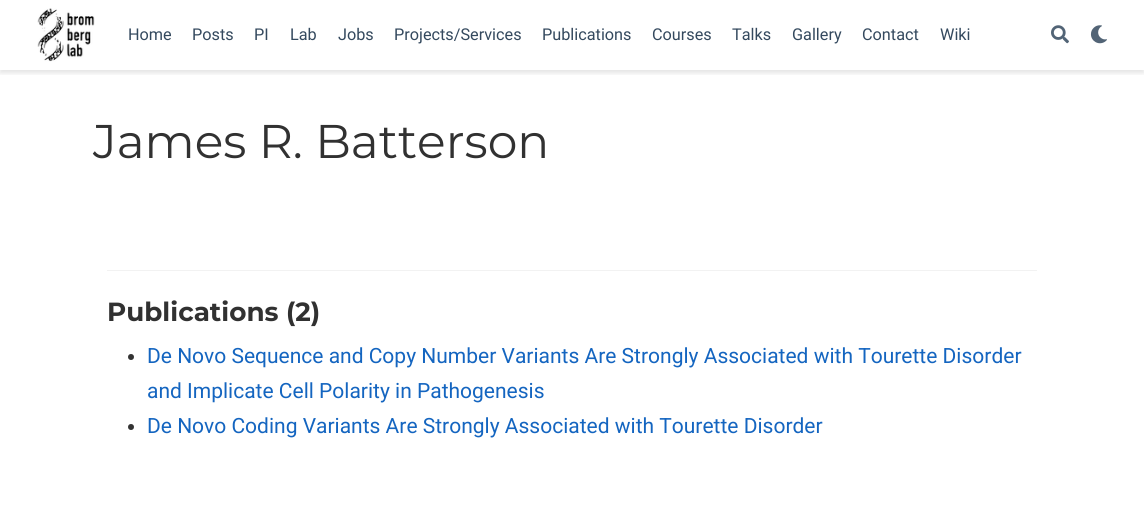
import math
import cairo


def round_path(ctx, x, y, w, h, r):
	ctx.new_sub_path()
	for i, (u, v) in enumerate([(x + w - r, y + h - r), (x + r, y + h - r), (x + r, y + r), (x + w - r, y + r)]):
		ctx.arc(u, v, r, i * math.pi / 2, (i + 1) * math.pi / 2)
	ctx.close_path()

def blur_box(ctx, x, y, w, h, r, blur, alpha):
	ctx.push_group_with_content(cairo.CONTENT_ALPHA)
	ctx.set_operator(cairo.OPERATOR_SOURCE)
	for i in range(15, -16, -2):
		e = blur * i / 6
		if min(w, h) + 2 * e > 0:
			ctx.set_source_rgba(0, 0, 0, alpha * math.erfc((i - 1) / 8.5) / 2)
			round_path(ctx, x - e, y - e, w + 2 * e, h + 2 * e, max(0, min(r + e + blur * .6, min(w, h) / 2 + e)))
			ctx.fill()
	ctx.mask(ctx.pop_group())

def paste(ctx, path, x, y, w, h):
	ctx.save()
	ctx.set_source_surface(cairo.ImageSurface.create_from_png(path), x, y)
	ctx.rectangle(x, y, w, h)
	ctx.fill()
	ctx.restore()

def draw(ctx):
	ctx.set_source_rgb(1, 1, 1)
	ctx.paint()
	ctx.save()
	ctx.rectangle(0, 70, 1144, 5)
	ctx.clip()
	ctx.set_source_rgb(0, 0, 0)
	blur_box(ctx, 0, 3, 1144, 70, 0, 2.5, 0.11)
	ctx.restore()
	paste(ctx, 'media/1.png', 37, 8, 58, 54)
	ctx.select_font_face('Roboto')
	ctx.set_font_size(16.25)
	ctx.set_source_rgb(0.204, 0.286, 0.369)
	for x, y, s in [
		(128, 40, 'Home'),
		(192, 40, 'Posts'),
		(254, 40, 'PI'),
		(290, 40, 'Lab'),
		(338, 40, 'Jobs'),
		(394, 40, 'Projects/Services'),
		(542, 40, 'Publications'),
		(652, 40, 'Courses'),
		(732, 40, 'Talks'),
		(792, 40, 'Gallery'),
		(862, 40, 'Contact'),
		(940, 40, 'Wiki'),
	]:
		ctx.move_to(x, y)
		ctx.show_text(s)
	paste(ctx, 'media/2.png', 1051, 25, 18, 19)
	paste(ctx, 'media/3.png', 1090, 25, 17, 19)
	ctx.select_font_face('Montserrat')
	ctx.set_font_size(47.25)
	ctx.set_source_rgb(0.192, 0.192, 0.192)
	ctx.move_to(93, 158)
	ctx.show_text('James R. Batterson')
	ctx.set_source_rgb(0.949, 0.949, 0.949)
	ctx.rectangle(107, 270, 930, 1)
	ctx.fill()
	ctx.select_font_face('Montserrat', cairo.FONT_SLANT_NORMAL, cairo.FONT_WEIGHT_BOLD)
	ctx.set_font_size(26.25)
	ctx.set_source_rgb(0.192, 0.192, 0.192)
	ctx.move_to(107, 321)
	ctx.show_text('Publications (2)')
	ctx.set_source_rgb(0.2, 0.2, 0.2)
	ctx.new_path()
	ctx.arc(131, 357, 3, 0, 2 * math.pi)
	ctx.fill()
	ctx.select_font_face('Roboto')
	ctx.set_font_size(21)
	ctx.set_source_rgb(0.082, 0.396, 0.753)
	ctx.move_to(147, 363)
	ctx.show_text('De Novo Sequence and Copy Number Variants Are Strongly Associated with Tourette Disorder')
	ctx.move_to(147, 398)
	ctx.show_text('and Implicate Cell Polarity in Pathogenesis')
	ctx.set_source_rgb(0.2, 0.2, 0.2)
	ctx.new_path()
	ctx.arc(131, 427, 3, 0, 2 * math.pi)
	ctx.fill()
	ctx.set_source_rgb(0.082, 0.396, 0.753)
	ctx.move_to(147, 433)
	ctx.show_text('De Novo Coding Variants Are Strongly Associated with Tourette Disorder')


surface = cairo.ImageSurface(cairo.FORMAT_RGB24, 1144, 527)
ctx = cairo.Context(surface)
options = cairo.FontOptions()
options.set_hint_metrics(cairo.HINT_METRICS_OFF)
options.set_hint_style(cairo.HINT_STYLE_NONE)
ctx.set_font_options(options)
ctx.set_miter_limit(4)
draw(ctx)
surface.write_to_png('image.png')
